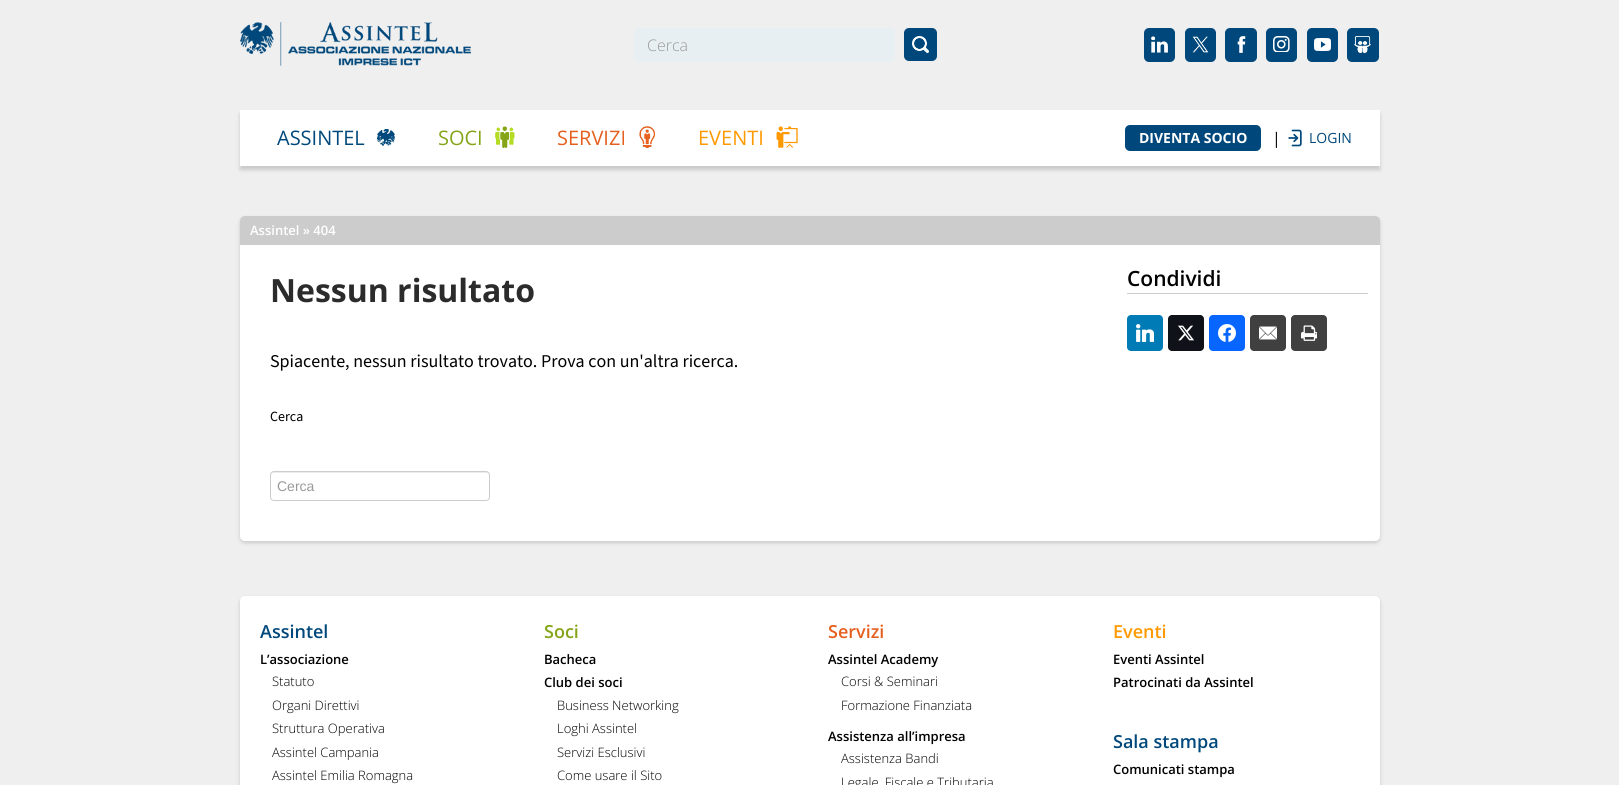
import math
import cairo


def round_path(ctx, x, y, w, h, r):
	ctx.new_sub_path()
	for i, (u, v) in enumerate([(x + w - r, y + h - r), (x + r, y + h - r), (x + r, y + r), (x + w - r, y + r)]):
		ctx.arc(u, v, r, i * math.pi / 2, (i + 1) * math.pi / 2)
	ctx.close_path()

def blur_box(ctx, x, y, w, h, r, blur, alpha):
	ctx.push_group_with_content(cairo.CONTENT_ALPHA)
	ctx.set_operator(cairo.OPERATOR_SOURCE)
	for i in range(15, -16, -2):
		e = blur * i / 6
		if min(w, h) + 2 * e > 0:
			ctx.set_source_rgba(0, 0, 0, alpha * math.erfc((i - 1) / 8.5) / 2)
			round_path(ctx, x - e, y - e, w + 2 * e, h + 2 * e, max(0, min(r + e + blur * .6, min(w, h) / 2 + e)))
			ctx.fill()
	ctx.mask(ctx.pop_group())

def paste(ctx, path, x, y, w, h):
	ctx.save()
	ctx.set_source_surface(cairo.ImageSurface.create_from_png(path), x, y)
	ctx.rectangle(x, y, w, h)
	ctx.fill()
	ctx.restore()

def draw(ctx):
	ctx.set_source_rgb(0.937, 0.937, 0.937)
	ctx.paint()
	paste(ctx, 'media/1.png', 240, 22, 231, 44)
	ctx.set_source_rgb(0.91, 0.937, 0.949)
	round_path(ctx, 634, 28, 261, 34, 4)
	ctx.fill()
	ctx.select_font_face('Open Sans Light')
	ctx.set_font_size(16)
	ctx.set_source_rgb(0.6, 0.6, 0.6)
	ctx.move_to(647, 51)
	ctx.show_text('Cerca')
	ctx.set_source_rgb(0, 0.282, 0.482)
	round_path(ctx, 904, 28, 33, 33, 5)
	ctx.fill()
	paste(ctx, 'media/2.png', 912, 36, 17, 17)
	round_path(ctx, 1144, 28, 31, 34, 5)
	ctx.fill()
	paste(ctx, 'media/3.png', 1151, 36, 17, 17)
	round_path(ctx, 1185, 28, 31, 34, 5)
	ctx.fill()
	paste(ctx, 'media/4.png', 1192, 36, 17, 17)
	round_path(ctx, 1225, 28, 32, 34, 5)
	ctx.fill()
	paste(ctx, 'media/5.png', 1237, 36, 9, 17)
	round_path(ctx, 1266, 28, 31, 34, 5)
	ctx.fill()
	paste(ctx, 'media/6.png', 1273, 36, 17, 16)
	round_path(ctx, 1307, 28, 31, 34, 5)
	ctx.fill()
	paste(ctx, 'media/7.png', 1314, 38, 17, 13)
	round_path(ctx, 1347, 28, 32, 34, 5)
	ctx.fill()
	paste(ctx, 'media/8.png', 1354, 36, 17, 17)
	ctx.set_source_rgb(0, 0, 0)
	blur_box(ctx, 240, 114, 1140, 56, 0, 2, 0.16)
	ctx.set_source_rgb(1, 1, 1)
	ctx.rectangle(240, 110, 1140, 56)
	ctx.fill()
	ctx.select_font_face('Open Sans')
	ctx.set_font_size(20)
	ctx.set_source_rgb(0, 0.282, 0.482)
	ctx.move_to(277, 145)
	ctx.show_text('ASSINTEL')
	paste(ctx, 'media/9.png', 377, 129, 18, 17)
	ctx.set_source_rgb(0.522, 0.647, 0.098)
	ctx.move_to(438, 145)
	ctx.show_text('SOCI')
	paste(ctx, 'media/10.png', 495, 126, 20, 22)
	ctx.set_source_rgb(0.898, 0.373, 0.122)
	ctx.move_to(557, 145)
	ctx.show_text('SERVIZI')
	paste(ctx, 'media/11.png', 639, 126, 16, 22)
	ctx.set_source_rgb(1, 0.6, 0)
	ctx.move_to(698, 145)
	ctx.show_text('EVENTI')
	paste(ctx, 'media/12.png', 776, 126, 22, 22)
	ctx.set_source_rgb(0, 0.282, 0.482)
	round_path(ctx, 1125, 125, 136, 26, 5)
	ctx.fill()
	ctx.select_font_face('Open Sans', cairo.FONT_SLANT_NORMAL, cairo.FONT_WEIGHT_BOLD)
	ctx.set_font_size(14)
	ctx.set_source_rgb(1, 1, 1)
	ctx.move_to(1139, 143)
	ctx.show_text('DIVENTA SOCIO')
	ctx.select_font_face('Open Sans')
	ctx.set_font_size(16)
	ctx.set_source_rgb(0, 0, 0)
	ctx.move_to(1272, 144)
	ctx.show_text('|')
	paste(ctx, 'media/13.png', 1288, 129, 14, 18)
	ctx.set_font_size(14)
	ctx.set_source_rgb(0, 0.282, 0.482)
	ctx.move_to(1309, 143)
	ctx.show_text('LOGIN')
	ctx.set_source_rgb(0, 0, 0)
	blur_box(ctx, 240, 218, 1140, 325, 5, 2, 0.16)
	ctx.set_source_rgb(1, 1, 1)
	round_path(ctx, 240, 216, 1140, 325, 5)
	ctx.fill()
	ctx.set_source_rgb(0.8, 0.8, 0.8)
	ctx.new_path()
	ctx.move_to(245, 216)
	ctx.line_to(1375, 216)
	ctx.curve_to(1378, 216, 1380, 218, 1380, 221)
	ctx.line_to(1380, 245)
	ctx.line_to(240, 245)
	ctx.line_to(240, 221)
	ctx.curve_to(240, 218, 242, 216, 245, 216)
	ctx.close_path()
	ctx.fill()
	ctx.select_font_face('Open Sans SemiBold')
	ctx.set_font_size(13)
	ctx.set_source_rgb(1, 1, 1)
	ctx.move_to(250, 235)
	ctx.show_text('Assintel » 404')
	ctx.select_font_face('Open Sans', cairo.FONT_SLANT_NORMAL, cairo.FONT_WEIGHT_BOLD)
	ctx.set_font_size(32)
	ctx.set_source_rgb(0.169, 0.169, 0.169)
	ctx.move_to(270, 302)
	ctx.show_text('Nessun risultato')
	ctx.select_font_face('Source Sans 3')
	ctx.set_font_size(18)
	ctx.set_source_rgb(0, 0, 0)
	ctx.move_to(270, 367)
	ctx.show_text('Spiacente, nessun risultato trovato. Prova con un\'altra ricerca.')
	ctx.set_font_size(14)
	ctx.move_to(270, 421)
	ctx.show_text('Cerca')
	ctx.set_source_rgb(0.925, 0.925, 0.925)
	ctx.new_path()
	ctx.move_to(274, 473)
	ctx.line_to(486, 473)
	ctx.curve_to(488, 473, 489, 474, 489, 476)
	ctx.line_to(489, 475)
	ctx.curve_to(489, 473, 488, 472, 486, 472)
	ctx.line_to(274, 472)
	ctx.curve_to(272, 472, 271, 473, 271, 475)
	ctx.line_to(271, 476)
	ctx.curve_to(271, 474, 272, 473, 274, 473)
	ctx.close_path()
	ctx.fill()
	round_path(ctx, 270.5, 471.5, 219, 29, 3.5)
	ctx.set_source_rgb(0.8, 0.8, 0.8)
	ctx.set_line_width(1)
	ctx.stroke()
	ctx.select_font_face('Liberation Sans')
	ctx.set_source_rgb(0.6, 0.6, 0.6)
	ctx.move_to(277, 491)
	ctx.show_text('Cerca')
	ctx.set_source_rgb(0.8, 0.8, 0.8)
	ctx.rectangle(1127, 293, 241, 1)
	ctx.fill()
	ctx.select_font_face('Open Sans SemiBold')
	ctx.set_font_size(21)
	ctx.set_source_rgb(0, 0, 0)
	ctx.move_to(1127, 286)
	ctx.show_text('Condividi')
	ctx.set_source_rgb(0, 0.482, 0.714)
	round_path(ctx, 1127, 315, 36, 36, 4)
	ctx.fill()
	paste(ctx, 'media/14.png', 1136, 324, 18, 18)
	ctx.set_source_rgb(0.059, 0.078, 0.098)
	round_path(ctx, 1168, 315, 36, 36, 4)
	ctx.fill()
	paste(ctx, 'media/15.png', 1178, 325, 16, 16)
	ctx.set_source_rgb(0.031, 0.4, 1)
	round_path(ctx, 1209, 315, 36, 36, 4)
	ctx.fill()
	paste(ctx, 'media/16.png', 1218, 324, 18, 18)
	ctx.set_source_rgb(0.251, 0.251, 0.251)
	round_path(ctx, 1250, 315, 36, 36, 4)
	ctx.fill()
	paste(ctx, 'media/17.png', 1259, 326, 18, 14)
	round_path(ctx, 1291, 315, 36, 36, 4)
	ctx.fill()
	paste(ctx, 'media/18.png', 1301, 325, 16, 16)
	ctx.set_source_rgb(0, 0, 0)
	blur_box(ctx, 240, 598, 1140, 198, 5, 2, 0.16)
	ctx.set_source_rgb(1, 1, 1)
	round_path(ctx, 240, 596, 1140, 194, 5)
	ctx.fill()
	ctx.set_font_size(18)
	ctx.set_source_rgb(0, 0.282, 0.482)
	ctx.move_to(260, 638)
	ctx.show_text('Assintel')
	ctx.set_font_size(13)
	ctx.set_source_rgb(0, 0, 0)
	ctx.move_to(260, 664)
	ctx.show_text('L’associazione')
	ctx.select_font_face('Open Sans Light')
	for x, y, s in [
		(272, 686, 'Statuto'),
		(272, 710, 'Organi Direttivi'),
		(272, 733, 'Struttura Operativa'),
		(272, 757, 'Assintel Campania'),
		(272, 780, 'Assintel Emilia Romagna'),
	]:
		ctx.move_to(x, y)
		ctx.show_text(s)
	ctx.select_font_face('Open Sans SemiBold')
	ctx.set_font_size(18)
	ctx.set_source_rgb(0.522, 0.647, 0.098)
	ctx.move_to(544, 638)
	ctx.show_text('Soci')
	ctx.set_font_size(13)
	ctx.set_source_rgb(0, 0, 0)
	ctx.move_to(544, 664)
	ctx.show_text('Bacheca')
	ctx.move_to(544, 687)
	ctx.show_text('Club dei soci')
	ctx.select_font_face('Open Sans Light')
	for x, y, s in [
		(557, 710, 'Business Networking'),
		(557, 733, 'Loghi Assintel'),
		(557, 757, 'Servizi Esclusivi'),
		(557, 780, 'Come usare il Sito'),
	]:
		ctx.move_to(x, y)
		ctx.show_text(s)
	ctx.select_font_face('Open Sans SemiBold')
	ctx.set_font_size(18)
	ctx.set_source_rgb(0.898, 0.373, 0.122)
	ctx.move_to(828, 638)
	ctx.show_text('Servizi')
	ctx.set_font_size(13)
	ctx.set_source_rgb(0, 0, 0)
	ctx.move_to(828, 664)
	ctx.show_text('Assintel Academy')
	ctx.select_font_face('Open Sans Light')
	ctx.move_to(841, 686)
	ctx.show_text('Corsi & Seminari')
	ctx.move_to(841, 710)
	ctx.show_text('Formazione Finanziata')
	ctx.select_font_face('Open Sans SemiBold')
	ctx.move_to(828, 741)
	ctx.show_text('Assistenza all’impresa')
	ctx.select_font_face('Open Sans Light')
	ctx.move_to(841, 763)
	ctx.show_text('Assistenza Bandi')
	ctx.move_to(841, 787)
	ctx.show_text('Legale, Fiscale e Tributaria')
	ctx.select_font_face('Open Sans SemiBold')
	ctx.set_font_size(18)
	ctx.set_source_rgb(1, 0.6, 0)
	ctx.move_to(1113, 638)
	ctx.show_text('Eventi')
	ctx.set_font_size(13)
	ctx.set_source_rgb(0, 0, 0)
	ctx.move_to(1113, 664)
	ctx.show_text('Eventi Assintel')
	ctx.move_to(1113, 687)
	ctx.show_text('Patrocinati da Assintel')
	ctx.set_font_size(18)
	ctx.set_source_rgb(0, 0.282, 0.482)
	ctx.move_to(1113, 748)
	ctx.show_text('Sala stampa')
	ctx.set_font_size(13)
	ctx.set_source_rgb(0, 0, 0)
	ctx.move_to(1113, 774)
	ctx.show_text('Comunicati stampa')


surface = cairo.ImageSurface(cairo.FORMAT_RGB24, 1619, 785)
ctx = cairo.Context(surface)
options = cairo.FontOptions()
options.set_hint_metrics(cairo.HINT_METRICS_OFF)
options.set_hint_style(cairo.HINT_STYLE_NONE)
ctx.set_font_options(options)
ctx.set_miter_limit(4)
draw(ctx)
surface.write_to_png('image.png')
